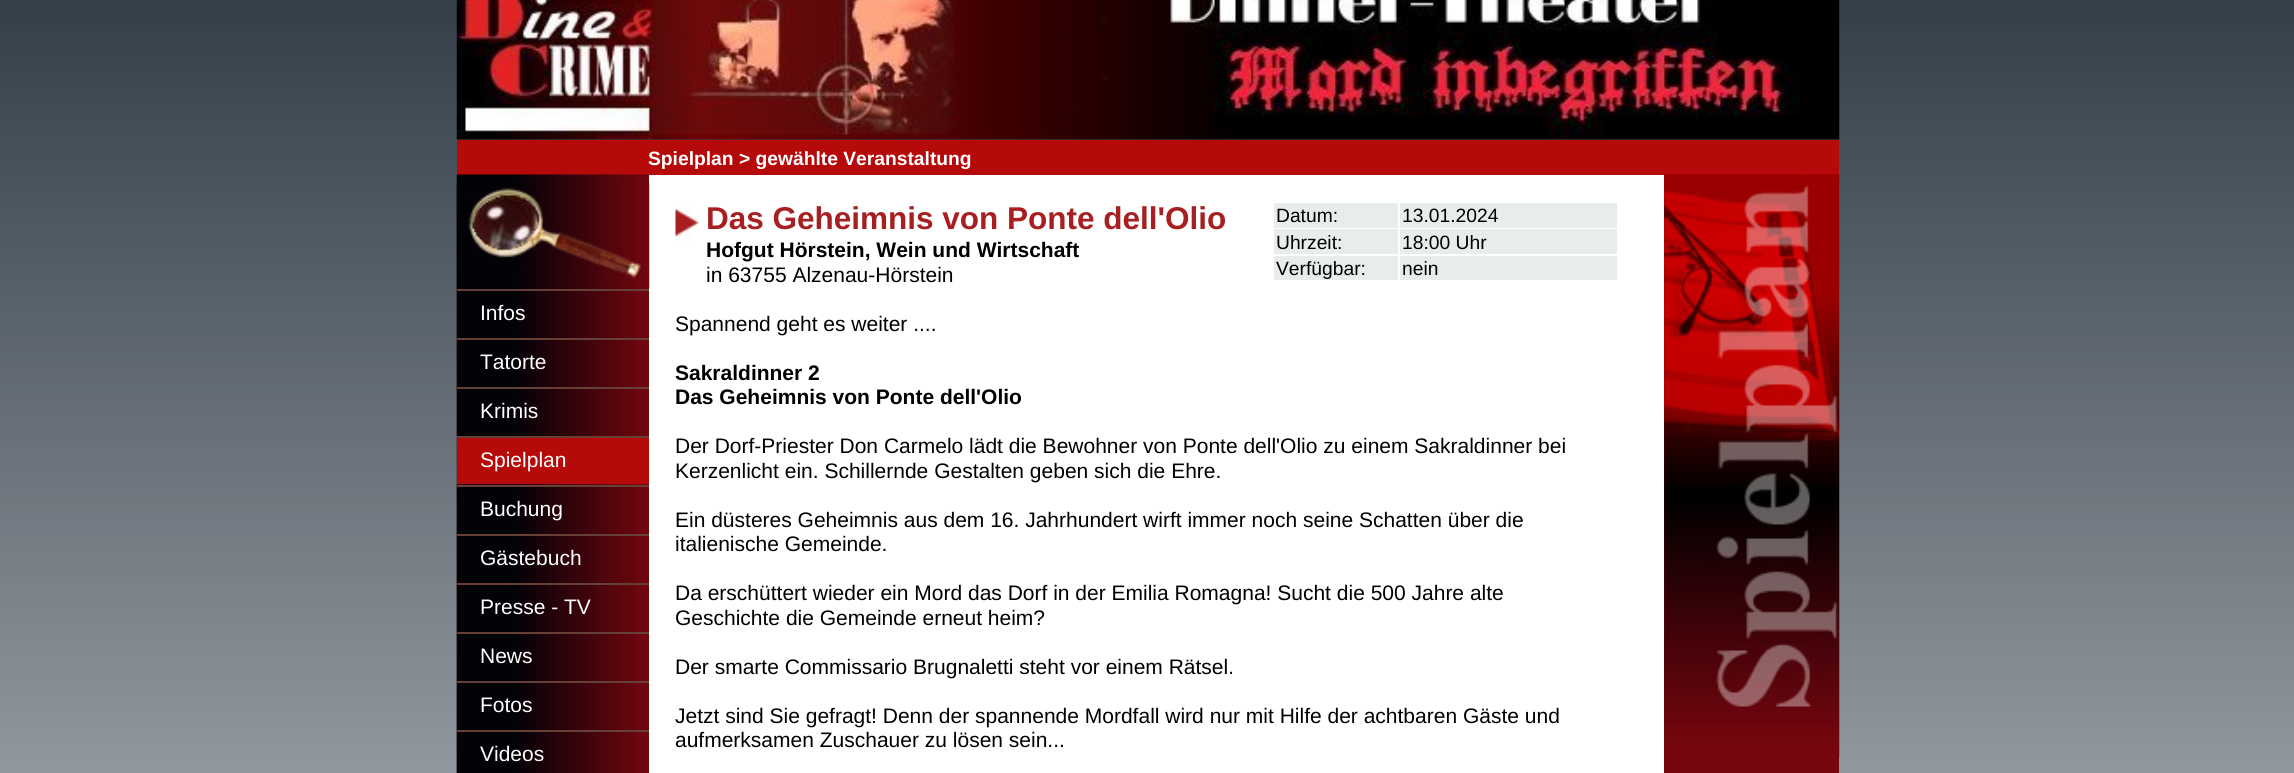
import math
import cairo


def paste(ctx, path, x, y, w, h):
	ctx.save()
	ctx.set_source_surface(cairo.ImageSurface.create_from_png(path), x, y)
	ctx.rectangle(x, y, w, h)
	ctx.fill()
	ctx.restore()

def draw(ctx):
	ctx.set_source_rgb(1, 1, 1)
	ctx.paint()
	paste(ctx, 'media/1.png', 0, 0, 2294, 773)
	paste(ctx, 'media/2.png', 456, 0, 1384, 140)
	ctx.set_source_rgb(0.714, 0.039, 0.039)
	ctx.rectangle(457, 140, 1382, 35)
	ctx.fill()
	ctx.select_font_face('Liberation Sans', cairo.FONT_SLANT_NORMAL, cairo.FONT_WEIGHT_BOLD)
	ctx.set_font_size(19.25)
	ctx.set_source_rgb(1, 1, 1)
	ctx.move_to(648, 165)
	ctx.show_text('Spielplan > gewählte Veranstaltung')
	paste(ctx, 'media/3.png', 456, 174, 194, 599)
	paste(ctx, 'media/5.png', 456, 288, 193, 50)
	ctx.rectangle(649, 175, 1015, 598)
	ctx.fill()
	paste(ctx, 'media/4.png', 456, 183, 194, 106)
	ctx.set_source_rgb(0.4, 0.251, 0.216)
	ctx.rectangle(457, 289, 192, 2)
	ctx.fill()
	ctx.select_font_face('Liberation Sans')
	ctx.set_font_size(21)
	ctx.set_source_rgb(1, 1, 1)
	ctx.move_to(480, 320)
	ctx.show_text('Infos')
	paste(ctx, 'media/6.png', 456, 337, 193, 50)
	ctx.set_source_rgb(0.4, 0.251, 0.216)
	ctx.rectangle(457, 338, 192, 2)
	ctx.fill()
	ctx.set_source_rgb(1, 1, 1)
	ctx.move_to(480, 369)
	ctx.show_text('Tatorte')
	paste(ctx, 'media/7.png', 456, 386, 193, 50)
	ctx.set_source_rgb(0.4, 0.251, 0.216)
	ctx.rectangle(457, 387, 192, 2)
	ctx.fill()
	ctx.set_source_rgb(1, 1, 1)
	ctx.move_to(480, 418)
	ctx.show_text('Krimis')
	ctx.set_source_rgb(0.714, 0.039, 0.039)
	ctx.rectangle(457, 438, 192, 47)
	ctx.fill()
	ctx.set_source_rgb(0.4, 0.251, 0.216)
	ctx.rectangle(457, 436, 192, 2)
	ctx.fill()
	ctx.set_source_rgb(1, 1, 1)
	ctx.move_to(480, 467)
	ctx.show_text('Spielplan')
	paste(ctx, 'media/8.png', 456, 484, 193, 50)
	ctx.set_source_rgb(0.4, 0.251, 0.216)
	ctx.rectangle(457, 485, 192, 2)
	ctx.fill()
	ctx.set_source_rgb(1, 1, 1)
	ctx.move_to(480, 516)
	ctx.show_text('Buchung')
	paste(ctx, 'media/9.png', 456, 533, 193, 50)
	ctx.set_source_rgb(0.4, 0.251, 0.216)
	ctx.rectangle(457, 534, 192, 2)
	ctx.fill()
	ctx.set_source_rgb(1, 1, 1)
	ctx.move_to(480, 565)
	ctx.show_text('Gästebuch')
	paste(ctx, 'media/10.png', 456, 582, 193, 50)
	ctx.set_source_rgb(0.4, 0.251, 0.216)
	ctx.rectangle(457, 583, 192, 2)
	ctx.fill()
	ctx.set_source_rgb(1, 1, 1)
	ctx.move_to(480, 614)
	ctx.show_text('Presse - TV')
	paste(ctx, 'media/11.png', 456, 631, 193, 50)
	ctx.set_source_rgb(0.4, 0.251, 0.216)
	ctx.rectangle(457, 632, 192, 2)
	ctx.fill()
	ctx.set_source_rgb(1, 1, 1)
	ctx.move_to(480, 663)
	ctx.show_text('News')
	paste(ctx, 'media/12.png', 456, 680, 193, 50)
	ctx.set_source_rgb(0.4, 0.251, 0.216)
	ctx.rectangle(457, 681, 192, 2)
	ctx.fill()
	ctx.set_source_rgb(1, 1, 1)
	ctx.move_to(480, 712)
	ctx.show_text('Fotos')
	paste(ctx, 'media/13.png', 456, 729, 193, 44)
	ctx.set_source_rgb(0.4, 0.251, 0.216)
	ctx.rectangle(457, 730, 192, 2)
	ctx.fill()
	ctx.set_source_rgb(1, 1, 1)
	ctx.move_to(480, 761)
	ctx.show_text('Videos')
	paste(ctx, 'media/14.png', 675, 203, 24, 38)
	ctx.select_font_face('Liberation Sans', cairo.FONT_SLANT_NORMAL, cairo.FONT_WEIGHT_BOLD)
	ctx.set_font_size(31.5)
	ctx.set_source_rgb(0.655, 0.122, 0.129)
	ctx.move_to(706, 229)
	ctx.show_text('Das Geheimnis von Ponte dell\'Olio')
	ctx.set_font_size(21)
	ctx.set_source_rgb(0, 0, 0)
	ctx.move_to(706, 257)
	ctx.show_text('Hofgut Hörstein, Wein und Wirtschaft')
	ctx.select_font_face('Liberation Sans')
	ctx.move_to(706, 282)
	ctx.show_text('in 63755 Alzenau-Hörstein')
	ctx.set_source_rgb(0.914, 0.922, 0.929)
	ctx.rectangle(1274, 203, 124, 25)
	ctx.fill()
	ctx.set_font_size(19.25)
	ctx.set_source_rgb(0, 0, 0)
	ctx.move_to(1276, 222)
	ctx.show_text('Datum:')
	ctx.set_source_rgb(0.914, 0.922, 0.929)
	ctx.rectangle(1400, 203, 217, 25)
	ctx.fill()
	ctx.set_source_rgb(0, 0, 0)
	ctx.move_to(1402, 222)
	ctx.show_text('13.01.2024')
	ctx.set_source_rgb(0.914, 0.922, 0.929)
	ctx.rectangle(1274, 229, 124, 25)
	ctx.fill()
	ctx.set_source_rgb(0, 0, 0)
	ctx.move_to(1276, 249)
	ctx.show_text('Uhrzeit:')
	ctx.set_source_rgb(0.914, 0.922, 0.929)
	ctx.rectangle(1400, 229, 217, 25)
	ctx.fill()
	ctx.set_source_rgb(0, 0, 0)
	ctx.move_to(1402, 249)
	ctx.show_text('18:00 Uhr')
	ctx.set_source_rgb(0.914, 0.922, 0.929)
	ctx.rectangle(1274, 256, 124, 24)
	ctx.fill()
	ctx.set_source_rgb(0, 0, 0)
	ctx.move_to(1276, 275)
	ctx.show_text('Verfügbar:')
	ctx.set_source_rgb(0.914, 0.922, 0.929)
	ctx.rectangle(1400, 256, 217, 24)
	ctx.fill()
	ctx.set_source_rgb(0, 0, 0)
	ctx.move_to(1402, 275)
	ctx.show_text('nein')
	ctx.set_font_size(21)
	ctx.move_to(675, 331)
	ctx.show_text('Spannend geht es weiter ....')
	ctx.select_font_face('Liberation Sans', cairo.FONT_SLANT_NORMAL, cairo.FONT_WEIGHT_BOLD)
	ctx.move_to(675, 380)
	ctx.show_text('Sakraldinner 2')
	ctx.move_to(675, 404)
	ctx.show_text('Das Geheimnis von Ponte dell\'Olio')
	ctx.select_font_face('Liberation Sans')
	for x, y, s in [
		(675, 453, 'Der Dorf-Priester Don Carmelo lädt die Bewohner von Ponte dell\'Olio zu einem Sakraldinner bei'),
		(675, 478, 'Kerzenlicht ein. Schillernde Gestalten geben sich die Ehre.'),
		(675, 527, 'Ein düsteres Geheimnis aus dem 16. Jahrhundert wirft immer noch seine Schatten über die'),
		(675, 551, 'italienische Gemeinde.'),
		(675, 600, 'Da erschüttert wieder ein Mord das Dorf in der Emilia Romagna! Sucht die 500 Jahre alte'),
		(675, 625, 'Geschichte die Gemeinde erneut heim?'),
		(675, 674, 'Der smarte Commissario Brugnaletti steht vor einem Rätsel.'),
		(675, 723, 'Jetzt sind Sie gefragt! Denn der spannende Mordfall wird nur mit Hilfe der achtbaren Gäste und'),
		(675, 747, 'aufmerksamen Zuschauer zu lösen sein...'),
	]:
		ctx.move_to(x, y)
		ctx.show_text(s)
	ctx.set_source_rgb(0.467, 0.024, 0.059)
	ctx.rectangle(1664, 175, 175, 598)
	ctx.fill()
	paste(ctx, 'media/15.png', 1664, 174, 176, 584)


surface = cairo.ImageSurface(cairo.FORMAT_RGB24, 2294, 773)
ctx = cairo.Context(surface)
options = cairo.FontOptions()
options.set_hint_metrics(cairo.HINT_METRICS_OFF)
options.set_hint_style(cairo.HINT_STYLE_NONE)
ctx.set_font_options(options)
ctx.set_miter_limit(4)
draw(ctx)
surface.write_to_png('image.png')
